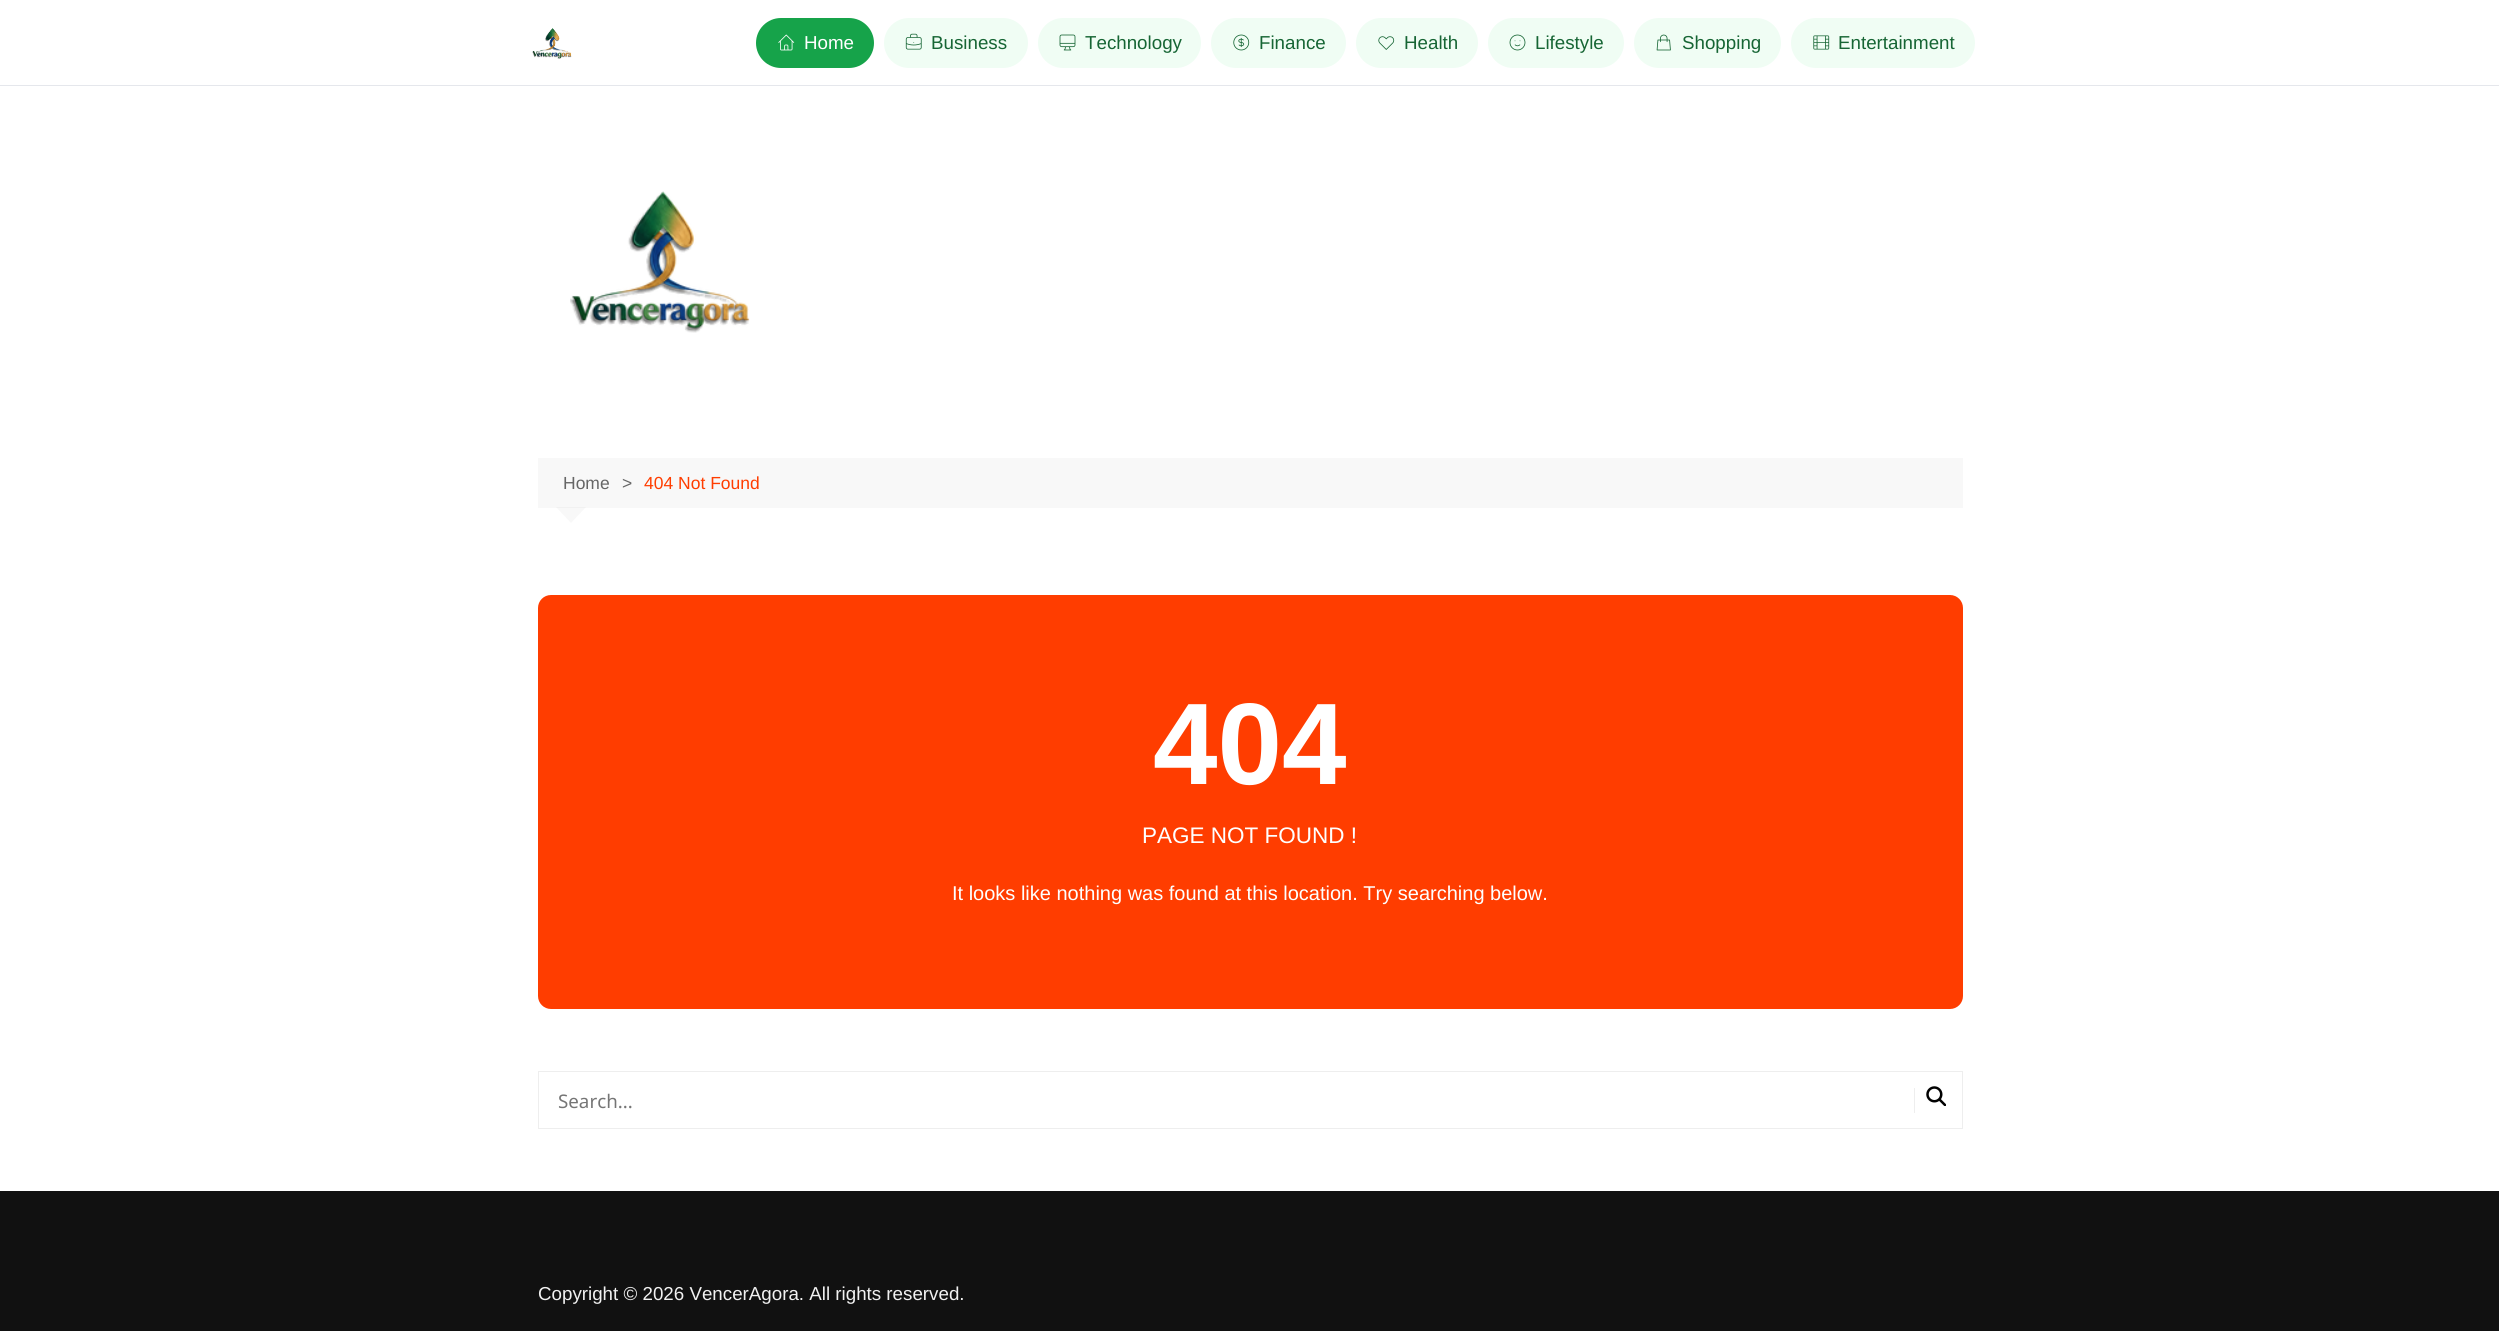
import math
import cairo


def round_path(ctx, x, y, w, h, r):
	ctx.new_sub_path()
	for i, (u, v) in enumerate([(x + w - r, y + h - r), (x + r, y + h - r), (x + r, y + r), (x + w - r, y + r)]):
		ctx.arc(u, v, r, i * math.pi / 2, (i + 1) * math.pi / 2)
	ctx.close_path()

def paste(ctx, path, x, y, w, h):
	ctx.save()
	ctx.set_source_surface(cairo.ImageSurface.create_from_png(path), x, y)
	ctx.rectangle(x, y, w, h)
	ctx.fill()
	ctx.restore()

def draw(ctx):
	ctx.set_source_rgb(1, 1, 1)
	ctx.paint()
	ctx.set_source_rgb(0.898, 0.906, 0.922)
	ctx.rectangle(0, 85, 2499, 1)
	ctx.fill()
	paste(ctx, 'media/1.png', 532, 28, 40, 31)
	ctx.set_source_rgb(0.086, 0.639, 0.29)
	round_path(ctx, 756, 18, 118, 50, 25)
	ctx.fill()
	paste(ctx, 'media/2.png', 778, 34, 17, 17)
	ctx.select_font_face('Liberation Sans')
	ctx.set_font_size(18.75)
	ctx.set_source_rgb(1, 1, 1)
	ctx.move_to(804, 49)
	ctx.show_text('Home')
	ctx.set_source_rgb(0.941, 0.992, 0.957)
	round_path(ctx, 884, 18, 144, 50, 25)
	ctx.fill()
	paste(ctx, 'media/3.png', 905, 33, 17, 17)
	ctx.set_source_rgb(0.086, 0.396, 0.204)
	ctx.move_to(931, 49)
	ctx.show_text('Business')
	ctx.set_source_rgb(0.941, 0.992, 0.957)
	round_path(ctx, 1038, 18, 163, 50, 25)
	ctx.fill()
	paste(ctx, 'media/4.png', 1059, 34, 17, 17)
	ctx.set_source_rgb(0.086, 0.396, 0.204)
	ctx.move_to(1085, 49)
	ctx.show_text('Technology')
	ctx.set_source_rgb(0.941, 0.992, 0.957)
	round_path(ctx, 1211, 18, 135, 50, 25)
	ctx.fill()
	paste(ctx, 'media/5.png', 1233, 34, 17, 17)
	ctx.set_source_rgb(0.086, 0.396, 0.204)
	ctx.move_to(1259, 49)
	ctx.show_text('Finance')
	ctx.set_source_rgb(0.941, 0.992, 0.957)
	round_path(ctx, 1356, 18, 122, 50, 25)
	ctx.fill()
	paste(ctx, 'media/6.png', 1378, 36, 17, 14)
	ctx.set_source_rgb(0.086, 0.396, 0.204)
	ctx.move_to(1404, 49)
	ctx.show_text('Health')
	ctx.set_source_rgb(0.941, 0.992, 0.957)
	round_path(ctx, 1488, 18, 136, 50, 25)
	ctx.fill()
	paste(ctx, 'media/7.png', 1509, 34, 17, 17)
	ctx.set_source_rgb(0.086, 0.396, 0.204)
	ctx.move_to(1535, 49)
	ctx.show_text('Lifestyle')
	ctx.set_source_rgb(0.941, 0.992, 0.957)
	round_path(ctx, 1634, 18, 147, 50, 25)
	ctx.fill()
	paste(ctx, 'media/8.png', 1656, 34, 15, 17)
	ctx.set_source_rgb(0.086, 0.396, 0.204)
	ctx.move_to(1682, 49)
	ctx.show_text('Shopping')
	ctx.set_source_rgb(0.941, 0.992, 0.957)
	round_path(ctx, 1791, 18, 184, 50, 25)
	ctx.fill()
	paste(ctx, 'media/9.png', 1813, 35, 17, 15)
	ctx.set_source_rgb(0.086, 0.396, 0.204)
	ctx.move_to(1838, 49)
	ctx.show_text('Entertainment')
	paste(ctx, 'media/10.png', 570, 191, 180, 142)
	ctx.set_source_rgb(0.969, 0.969, 0.969)
	ctx.rectangle(538, 458, 1425, 50)
	ctx.fill()
	ctx.set_font_size(17.5)
	ctx.set_source_rgb(0.4, 0.4, 0.4)
	ctx.move_to(563, 489)
	ctx.show_text('Home')
	ctx.move_to(622, 489)
	ctx.show_text('>')
	ctx.set_source_rgb(1, 0.239, 0)
	ctx.move_to(644, 489)
	ctx.show_text('404 Not Found')
	ctx.set_source_rgba(0, 0, 0, 0.03)
	ctx.new_path()
	ctx.move_to(556, 507)
	ctx.line_to(586, 507)
	ctx.line_to(571, 523)
	ctx.close_path()
	ctx.fill()
	ctx.set_source_rgb(1, 0.239, 0)
	round_path(ctx, 538, 595, 1425, 414, 13)
	ctx.fill()
	ctx.select_font_face('Liberation Sans', cairo.FONT_SLANT_NORMAL, cairo.FONT_WEIGHT_BOLD)
	ctx.set_font_size(116)
	ctx.set_source_rgb(1, 1, 1)
	ctx.move_to(1153, 784)
	ctx.show_text('404')
	ctx.select_font_face('Liberation Sans')
	ctx.set_font_size(22.5)
	ctx.move_to(1142, 843)
	ctx.show_text('PAGE NOT FOUND !')
	ctx.set_font_size(20)
	ctx.move_to(952, 900)
	ctx.show_text('It looks like nothing was found at this location. Try searching below.')
	ctx.rectangle(538.5, 1071.5, 1424, 57)
	ctx.set_source_rgb(0.933, 0.933, 0.933)
	ctx.set_line_width(1)
	ctx.stroke()
	ctx.select_font_face('Noto Sans')
	ctx.set_font_size(18.75)
	ctx.set_source_rgb(0.459, 0.459, 0.459)
	ctx.move_to(558, 1108)
	ctx.show_text('Search...')
	ctx.set_source_rgb(0.933, 0.933, 0.933)
	ctx.rectangle(1914, 1088, 1, 25)
	ctx.fill()
	paste(ctx, 'media/11.png', 1926, 1086, 20, 20)
	ctx.set_source_rgb(0.067, 0.067, 0.067)
	ctx.rectangle(0, 1191, 2499, 140)
	ctx.fill()
	ctx.select_font_face('Liberation Sans')
	ctx.set_source_rgb(0.945, 0.945, 0.945)
	ctx.move_to(538, 1300)
	ctx.show_text('Copyright © 2026 VencerAgora. All rights reserved.')


surface = cairo.ImageSurface(cairo.FORMAT_RGB24, 2499, 1331)
ctx = cairo.Context(surface)
options = cairo.FontOptions()
options.set_hint_metrics(cairo.HINT_METRICS_OFF)
options.set_hint_style(cairo.HINT_STYLE_NONE)
ctx.set_font_options(options)
ctx.set_miter_limit(4)
draw(ctx)
surface.write_to_png('image.png')
